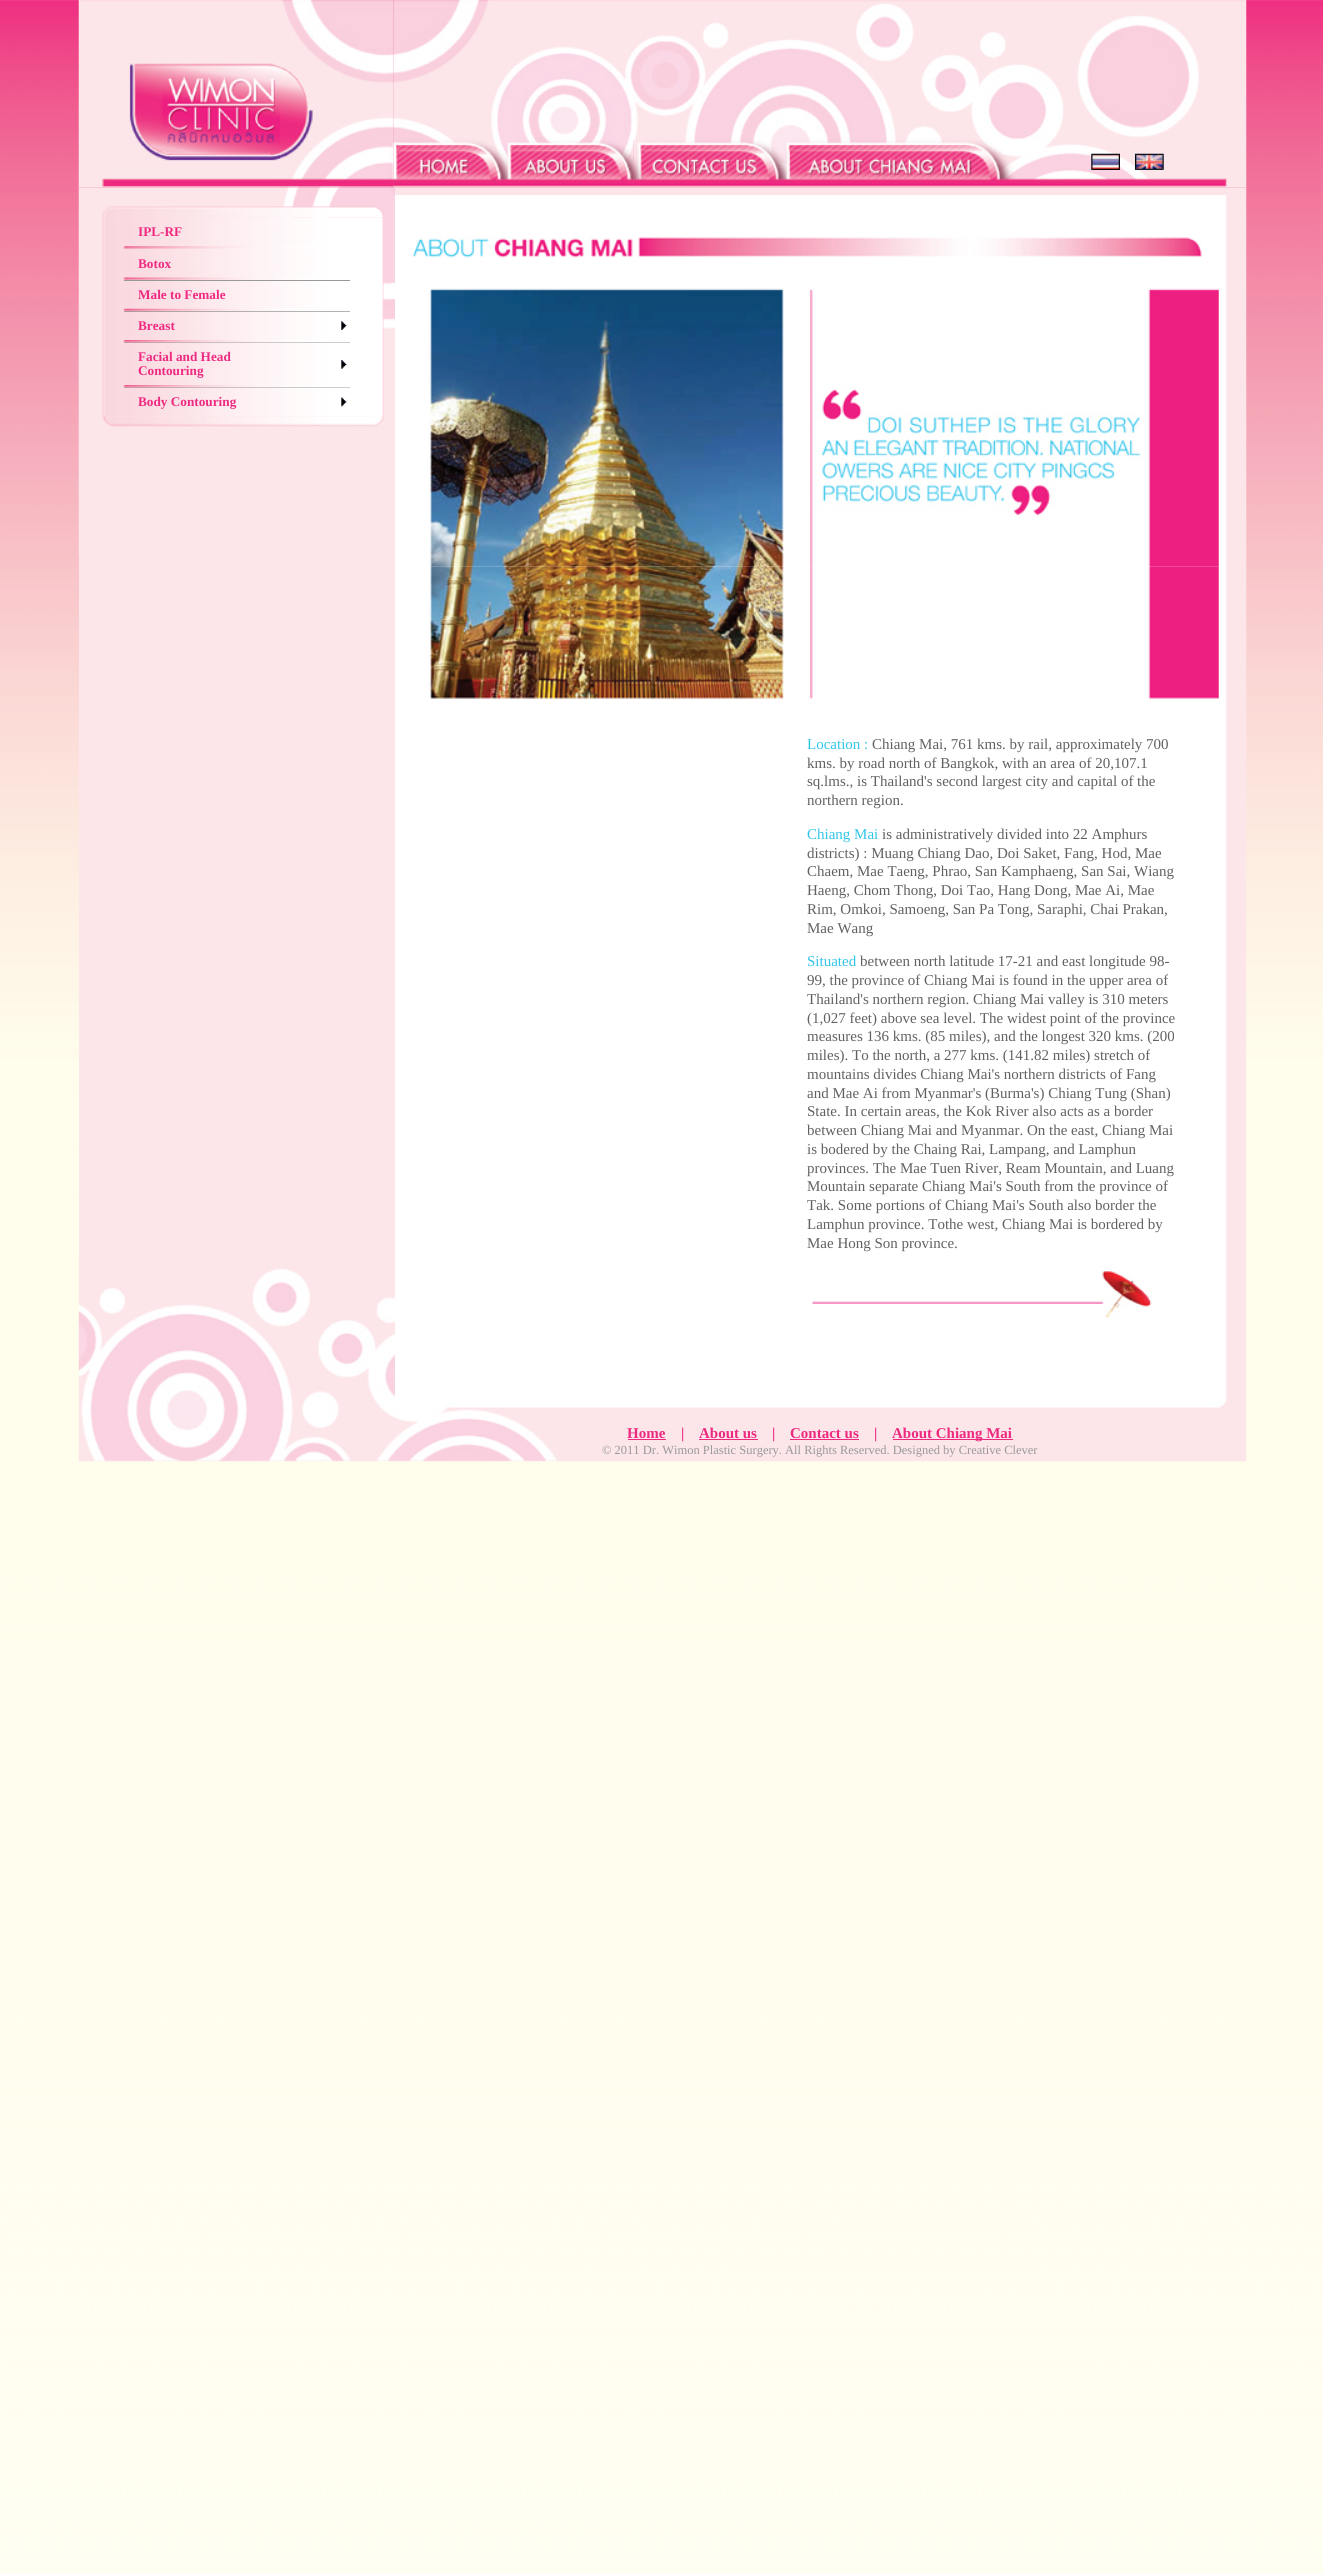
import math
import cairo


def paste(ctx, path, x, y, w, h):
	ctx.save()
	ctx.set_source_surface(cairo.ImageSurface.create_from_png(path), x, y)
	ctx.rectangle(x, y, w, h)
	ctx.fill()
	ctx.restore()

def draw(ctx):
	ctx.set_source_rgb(1, 1, 1)
	ctx.paint()
	paste(ctx, 'media/1.png', 0, 0, 1323, 2574)
	paste(ctx, 'media/3.png', 393, 0, 854, 140)
	ctx.set_source_rgb(0.988, 0.902, 0.914)
	ctx.rectangle(79, 553, 316, 704)
	ctx.fill()
	paste(ctx, 'media/11.png', 78, 187, 317, 367)
	paste(ctx, 'media/2.png', 78, 0, 316, 188)
	paste(ctx, 'media/4.png', 393, 140, 112, 48)
	paste(ctx, 'media/5.png', 505, 140, 129, 48)
	paste(ctx, 'media/6.png', 633, 140, 152, 48)
	paste(ctx, 'media/7.png', 785, 140, 225, 48)
	paste(ctx, 'media/8.png', 1010, 140, 237, 48)
	paste(ctx, 'media/9.png', 1091, 153, 29, 17)
	paste(ctx, 'media/10.png', 1135, 153, 29, 17)
	paste(ctx, 'media/13.png', 102, 217, 282, 200)
	paste(ctx, 'media/12.png', 102, 206, 282, 12)
	ctx.select_font_face('Liberation Serif', cairo.FONT_SLANT_NORMAL, cairo.FONT_WEIGHT_BOLD)
	ctx.set_font_size(13.25)
	ctx.set_source_rgb(0.929, 0.165, 0.502)
	ctx.move_to(138, 236)
	ctx.show_text('IPL-RF')
	paste(ctx, 'media/14.png', 123, 246, 227, 3)
	ctx.move_to(138, 268)
	ctx.show_text('Botox')
	ctx.set_source_rgb(0.6, 0.6, 0.6)
	ctx.rectangle(124, 280, 226, 1)
	ctx.fill()
	paste(ctx, 'media/15.png', 123, 277, 227, 3)
	ctx.set_source_rgb(0.929, 0.165, 0.502)
	ctx.move_to(138, 299)
	ctx.show_text('Male to Female')
	ctx.set_source_rgb(0.6, 0.6, 0.6)
	ctx.rectangle(124, 311, 226, 1)
	ctx.fill()
	paste(ctx, 'media/16.png', 123, 308, 227, 4)
	ctx.set_source_rgb(0.929, 0.165, 0.502)
	ctx.move_to(138, 330)
	ctx.show_text('Breast')
	paste(ctx, 'media/17.png', 341, 321, 6, 9)
	ctx.set_source_rgb(0.6, 0.6, 0.6)
	ctx.rectangle(124, 342, 226, 1)
	ctx.fill()
	paste(ctx, 'media/18.png', 123, 340, 227, 3)
	ctx.set_source_rgb(0.929, 0.165, 0.502)
	ctx.move_to(138, 361)
	ctx.show_text('Facial and Head')
	ctx.move_to(138, 375)
	ctx.show_text('Contouring')
	paste(ctx, 'media/19.png', 341, 360, 6, 9)
	ctx.set_source_rgb(0.6, 0.6, 0.6)
	ctx.rectangle(124, 387, 226, 1)
	ctx.fill()
	paste(ctx, 'media/18.png', 123, 385, 227, 3)
	ctx.set_source_rgb(0.929, 0.165, 0.502)
	ctx.move_to(138, 406)
	ctx.show_text('Body Contouring')
	paste(ctx, 'media/20.png', 341, 397, 6, 10)
	paste(ctx, 'media/21.png', 102, 416, 282, 11)
	paste(ctx, 'media/22.png', 395, 187, 852, 18)
	paste(ctx, 'media/23.png', 395, 205, 852, 1195)
	paste(ctx, 'media/24.png', 412, 237, 790, 21)
	paste(ctx, 'media/25.png', 429, 288, 790, 142)
	paste(ctx, 'media/26.png', 429, 430, 790, 137)
	paste(ctx, 'media/27.png', 429, 566, 790, 133)
	ctx.select_font_face('Liberation Serif')
	ctx.set_font_size(15)
	ctx.set_source_rgb(0.188, 0.769, 0.91)
	ctx.move_to(807, 749)
	ctx.show_text('Location :')
	ctx.set_source_rgb(0.38, 0.38, 0.38)
	for x, y, s in [
		(872, 749, 'Chiang Mai, 761 kms. by rail, approximately 700'),
		(807, 768, 'kms. by road north of Bangkok, with an area of 20,107.1'),
		(807, 786, 'sq.lms., is Thailand\'s second largest city and capital of the'),
		(807, 805, 'northern region.'),
	]:
		ctx.move_to(x, y)
		ctx.show_text(s)
	ctx.set_source_rgb(0.188, 0.769, 0.91)
	ctx.move_to(807, 839)
	ctx.show_text('Chiang Mai')
	ctx.set_source_rgb(0.38, 0.38, 0.38)
	for x, y, s in [
		(882, 839, 'is administratively divided into 22 Amphurs'),
		(807, 858, 'districts) : Muang Chiang Dao, Doi Saket, Fang, Hod, Mae'),
		(807, 876, 'Chaem, Mae Taeng, Phrao, San Kamphaeng, San Sai, Wiang'),
		(807, 895, 'Haeng, Chom Thong, Doi Tao, Hang Dong, Mae Ai, Mae'),
		(807, 914, 'Rim, Omkoi, Samoeng, San Pa Tong, Saraphi, Chai Prakan,'),
		(807, 933, 'Mae Wang'),
	]:
		ctx.move_to(x, y)
		ctx.show_text(s)
	ctx.set_source_rgb(0.188, 0.769, 0.91)
	ctx.move_to(807, 966)
	ctx.show_text('Situated')
	ctx.set_source_rgb(0.38, 0.38, 0.38)
	for x, y, s in [
		(860, 966, 'between north latitude 17-21 and east longitude 98-'),
		(807, 985, '99, the province of Chiang Mai is found in the upper area of'),
		(807, 1004, 'Thailand\'s northern region. Chiang Mai valley is 310 meters'),
		(807, 1023, '(1,027 feet) above sea level. The widest point of the province'),
		(807, 1041, 'measures 136 kms. (85 miles), and the longest 320 kms. (200'),
		(807, 1060, 'miles). To the north, a 277 kms. (141.82 miles) stretch of'),
		(807, 1079, 'mountains divides Chiang Mai\'s northern districts of Fang'),
		(807, 1098, 'and Mae Ai from Myanmar\'s (Burma\'s) Chiang Tung (Shan)'),
		(807, 1116, 'State. In certain areas, the Kok River also acts as a border'),
		(807, 1135, 'between Chiang Mai and Myanmar. On the east, Chiang Mai'),
		(807, 1154, 'is bodered by the Chaing Rai, Lampang, and Lamphun'),
		(807, 1173, 'provinces. The Mae Tuen River, Ream Mountain, and Luang'),
		(807, 1191, 'Mountain separate Chiang Mai\'s South from the province of'),
		(807, 1210, 'Tak. Some portions of Chiang Mai\'s South also border the'),
		(807, 1229, 'Lamphun province. Tothe west, Chiang Mai is bordered by'),
		(807, 1248, 'Mae Hong Son province.'),
	]:
		ctx.move_to(x, y)
		ctx.show_text(s)
	paste(ctx, 'media/28.png', 812, 1271, 340, 47)
	paste(ctx, 'media/29.png', 78, 1257, 317, 143)
	paste(ctx, 'media/30.png', 78, 1400, 317, 62)
	paste(ctx, 'media/31.png', 395, 1400, 852, 62)
	ctx.select_font_face('Liberation Serif', cairo.FONT_SLANT_NORMAL, cairo.FONT_WEIGHT_BOLD)
	ctx.set_source_rgb(0.929, 0.165, 0.502)
	ctx.move_to(627, 1438)
	ctx.show_text('Home')
	ctx.set_source_rgb(0.925, 0.165, 0.502)
	ctx.rectangle(628, 1439, 38, 1)
	ctx.fill()
	ctx.set_source_rgb(0.929, 0.165, 0.502)
	ctx.move_to(681, 1438)
	ctx.show_text('|')
	ctx.move_to(699, 1438)
	ctx.show_text('About us')
	ctx.set_source_rgb(0.925, 0.165, 0.502)
	ctx.rectangle(699, 1439, 59, 1)
	ctx.fill()
	ctx.set_source_rgb(0.929, 0.165, 0.502)
	ctx.move_to(772, 1438)
	ctx.show_text('|')
	ctx.move_to(790, 1438)
	ctx.show_text('Contact us')
	ctx.set_source_rgb(0.925, 0.165, 0.502)
	ctx.rectangle(790, 1439, 69, 1)
	ctx.fill()
	ctx.set_source_rgb(0.929, 0.165, 0.502)
	ctx.move_to(874, 1438)
	ctx.show_text('|')
	ctx.set_source_rgb(0.925, 0.165, 0.502)
	ctx.rectangle(893, 1439, 120, 1)
	ctx.fill()
	ctx.set_source_rgb(0.929, 0.165, 0.502)
	ctx.move_to(892, 1438)
	ctx.show_text('About Chiang Mai')
	ctx.select_font_face('Liberation Serif')
	ctx.set_font_size(12.5)
	ctx.set_source_rgb(0.6, 0.6, 0.6)
	ctx.move_to(602, 1454)
	ctx.show_text('© 2011 Dr. Wimon Plastic Surgery. All Rights Reserved. Designed by Creative Clever')


surface = cairo.ImageSurface(cairo.FORMAT_RGB24, 1323, 2574)
ctx = cairo.Context(surface)
options = cairo.FontOptions()
options.set_hint_metrics(cairo.HINT_METRICS_OFF)
options.set_hint_style(cairo.HINT_STYLE_NONE)
ctx.set_font_options(options)
ctx.set_miter_limit(4)
draw(ctx)
surface.write_to_png('image.png')
